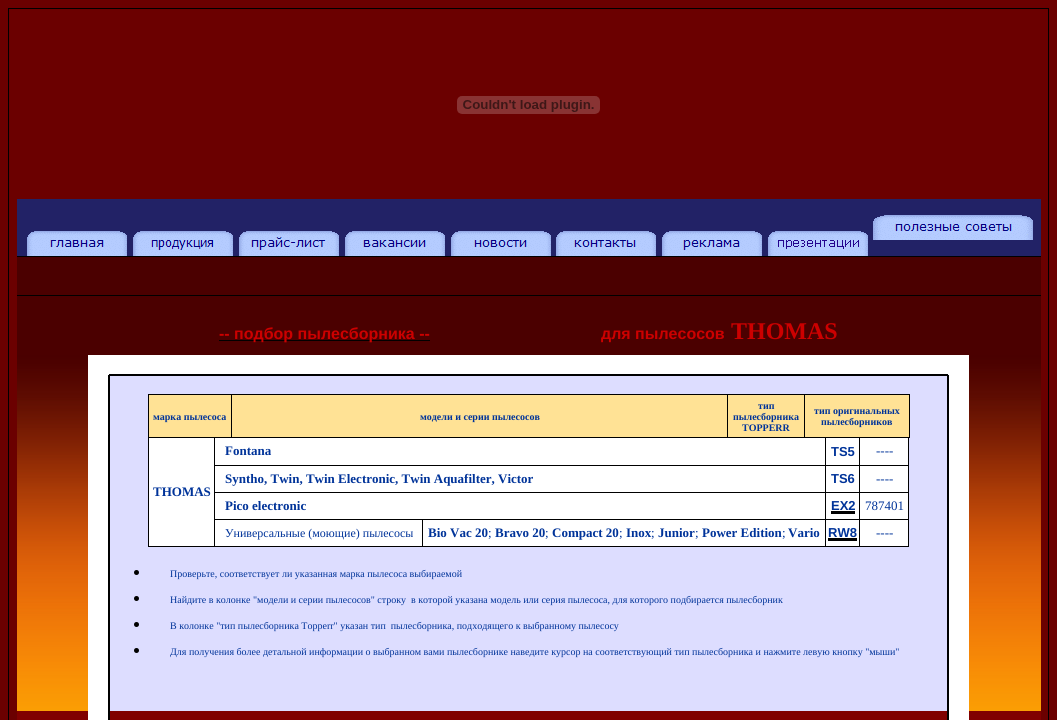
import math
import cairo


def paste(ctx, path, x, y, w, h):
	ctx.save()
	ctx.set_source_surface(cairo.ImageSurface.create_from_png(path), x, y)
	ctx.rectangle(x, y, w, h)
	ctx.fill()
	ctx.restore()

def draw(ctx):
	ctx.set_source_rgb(0.42, 0, 0)
	ctx.paint()
	ctx.rectangle(8.5, 8.5, 1040, 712)
	ctx.set_source_rgb(0, 0, 0)
	ctx.set_line_width(1)
	ctx.stroke()
	paste(ctx, 'media/1.png', 457, 96, 143, 18)
	ctx.set_source_rgb(0.133, 0.133, 0.4)
	ctx.rectangle(17, 199, 5, 58)
	ctx.fill()
	ctx.set_source_rgb(0, 0, 0)
	ctx.rectangle(17, 256, 1024, 1)
	ctx.fill()
	ctx.set_source_rgb(0.133, 0.133, 0.4)
	ctx.rectangle(22, 199, 1019, 57)
	ctx.fill()
	paste(ctx, 'media/2.png', 27, 231, 100, 25)
	paste(ctx, 'media/3.png', 873, 215, 160, 25)
	paste(ctx, 'media/4.png', 133, 231, 100, 25)
	paste(ctx, 'media/5.png', 239, 231, 100, 25)
	paste(ctx, 'media/6.png', 345, 231, 100, 25)
	paste(ctx, 'media/7.png', 451, 231, 100, 25)
	paste(ctx, 'media/8.png', 556, 231, 100, 25)
	paste(ctx, 'media/9.png', 662, 231, 100, 25)
	paste(ctx, 'media/10.png', 768, 231, 100, 25)
	ctx.set_source_rgb(0.294, 0, 0)
	ctx.rectangle(17, 257, 1024, 38)
	ctx.fill()
	ctx.set_source_rgb(0, 0, 0)
	ctx.rectangle(17, 295, 1024, 1)
	ctx.fill()
	ctx.set_source_rgb(0.294, 0, 0)
	ctx.rectangle(17, 296, 1024, 59)
	ctx.fill()
	ctx.set_source_rgb(0, 0, 0)
	ctx.rectangle(219, 340, 211, 1)
	ctx.fill()
	ctx.select_font_face('Liberation Sans', cairo.FONT_SLANT_NORMAL, cairo.FONT_WEIGHT_BOLD)
	ctx.set_font_size(16)
	ctx.set_source_rgb(0.8, 0, 0)
	ctx.move_to(219, 339)
	ctx.show_text('-- подбор пылесборника --')
	ctx.move_to(601, 339)
	ctx.show_text('для пылесосов')
	ctx.select_font_face('Liberation Serif', cairo.FONT_SLANT_NORMAL, cairo.FONT_WEIGHT_BOLD)
	ctx.set_font_size(24)
	ctx.move_to(731, 339)
	ctx.show_text('THOMAS')
	paste(ctx, 'media/11.png', 17, 355, 1024, 356)
	ctx.set_source_rgb(1, 1, 1)
	ctx.rectangle(88, 355, 21, 20)
	ctx.rectangle(109, 355, 839, 19)
	ctx.fill()
	ctx.set_source_rgb(0, 0, 0)
	ctx.rectangle(109, 374, 839, 2)
	ctx.fill()
	ctx.set_source_rgb(1, 1, 1)
	ctx.rectangle(948, 355, 21, 20)
	ctx.rectangle(88, 375, 20, 345)
	ctx.fill()
	ctx.set_source_rgb(0, 0, 0)
	ctx.rectangle(108, 375, 2, 336)
	ctx.fill()
	ctx.set_source_rgb(0.867, 0.867, 1)
	ctx.rectangle(110, 376, 837, 335)
	ctx.fill()
	ctx.set_source_rgb(0, 0, 0)
	ctx.rectangle(947, 375, 2, 336)
	ctx.fill()
	ctx.set_source_rgb(1, 0.886, 0.584)
	ctx.rectangle(149, 395, 82, 42)
	ctx.fill()
	ctx.set_source_rgb(0, 0, 0)
	ctx.rectangle(148, 394, 762, 1)
	ctx.rectangle(909, 394, 1, 44)
	ctx.rectangle(804, 437, 106, 1)
	ctx.rectangle(804, 394, 1, 44)
	ctx.rectangle(727, 437, 78, 1)
	ctx.rectangle(727, 394, 1, 44)
	ctx.rectangle(231, 437, 497, 1)
	ctx.rectangle(231, 394, 1, 44)
	ctx.rectangle(148, 437, 84, 1)
	ctx.rectangle(148, 394, 1, 44)
	ctx.fill()
	ctx.set_font_size(10)
	ctx.set_source_rgb(0, 0.2, 0.6)
	ctx.move_to(153, 420)
	ctx.show_text('марка пылесоса')
	ctx.set_source_rgb(1, 0.886, 0.584)
	ctx.rectangle(232, 395, 495, 42)
	ctx.fill()
	ctx.set_source_rgb(0, 0.2, 0.6)
	ctx.move_to(420, 420)
	ctx.show_text('модели и серии пылесосов')
	ctx.set_source_rgb(1, 0.886, 0.584)
	ctx.rectangle(728, 395, 76, 42)
	ctx.fill()
	ctx.set_source_rgb(0, 0.2, 0.6)
	for x, y, s in [
		(758, 409, 'тип'),
		(733, 420, 'пылесборника'),
		(742, 431, 'TOPPERR'),
	]:
		ctx.move_to(x, y)
		ctx.show_text(s)
	ctx.set_source_rgb(1, 0.886, 0.584)
	ctx.rectangle(805, 395, 104, 42)
	ctx.fill()
	ctx.set_source_rgb(0, 0.2, 0.6)
	ctx.move_to(814, 414)
	ctx.show_text('тип оригинальных')
	ctx.move_to(821, 425)
	ctx.show_text('пылесборников')
	ctx.set_source_rgb(1, 1, 1)
	ctx.rectangle(215, 438, 610, 27)
	ctx.fill()
	ctx.set_source_rgb(0, 0, 0)
	ctx.rectangle(908, 438, 1, 109)
	ctx.rectangle(859, 546, 50, 1)
	ctx.rectangle(859, 519, 1, 28)
	ctx.rectangle(859, 519, 50, 1)
	ctx.rectangle(859, 492, 1, 28)
	ctx.rectangle(859, 492, 50, 1)
	ctx.rectangle(859, 465, 1, 28)
	ctx.rectangle(859, 465, 50, 1)
	ctx.rectangle(859, 438, 1, 28)
	ctx.rectangle(825, 546, 35, 1)
	ctx.rectangle(825, 519, 1, 28)
	ctx.rectangle(825, 519, 35, 1)
	ctx.rectangle(825, 492, 1, 28)
	ctx.rectangle(825, 492, 35, 1)
	ctx.rectangle(825, 465, 1, 28)
	ctx.rectangle(825, 465, 35, 1)
	ctx.rectangle(825, 438, 1, 28)
	ctx.rectangle(214, 465, 612, 1)
	ctx.fill()
	ctx.set_font_size(13)
	ctx.set_source_rgb(0, 0.2, 0.6)
	ctx.move_to(225, 455)
	ctx.show_text('Fontana')
	ctx.set_source_rgb(1, 1, 1)
	ctx.rectangle(826, 438, 33, 27)
	ctx.fill()
	ctx.select_font_face('Liberation Sans', cairo.FONT_SLANT_NORMAL, cairo.FONT_WEIGHT_BOLD)
	ctx.set_source_rgb(0, 0.2, 0.6)
	ctx.move_to(831, 456)
	ctx.show_text('TS5')
	ctx.set_source_rgb(1, 1, 1)
	ctx.rectangle(860, 438, 48, 27)
	ctx.fill()
	ctx.select_font_face('Liberation Serif')
	ctx.set_source_rgb(0, 0.2, 0.6)
	ctx.move_to(876, 455)
	ctx.show_text('----')
	ctx.set_source_rgb(1, 1, 1)
	ctx.rectangle(149, 438, 65, 108)
	ctx.fill()
	ctx.set_source_rgb(0, 0, 0)
	ctx.rectangle(214, 492, 612, 1)
	ctx.rectangle(422, 546, 404, 1)
	ctx.rectangle(422, 519, 1, 28)
	ctx.rectangle(214, 519, 612, 1)
	ctx.rectangle(214, 546, 209, 1)
	ctx.rectangle(214, 438, 1, 109)
	ctx.rectangle(148, 546, 67, 1)
	ctx.rectangle(148, 438, 1, 109)
	ctx.fill()
	ctx.select_font_face('Liberation Serif', cairo.FONT_SLANT_NORMAL, cairo.FONT_WEIGHT_BOLD)
	ctx.set_source_rgb(0, 0.2, 0.6)
	ctx.move_to(153, 496)
	ctx.show_text('THOMAS')
	ctx.set_source_rgb(1, 1, 1)
	ctx.rectangle(215, 466, 610, 26)
	ctx.fill()
	ctx.set_source_rgb(0, 0.2, 0.6)
	ctx.move_to(225, 483)
	ctx.show_text('Syntho, Twin, Twin Electronic, Twin Aquafilter, Victor')
	ctx.set_source_rgb(1, 1, 1)
	ctx.rectangle(826, 466, 33, 26)
	ctx.fill()
	ctx.select_font_face('Liberation Sans', cairo.FONT_SLANT_NORMAL, cairo.FONT_WEIGHT_BOLD)
	ctx.set_source_rgb(0, 0.2, 0.6)
	ctx.move_to(831, 483)
	ctx.show_text('TS6')
	ctx.set_source_rgb(1, 1, 1)
	ctx.rectangle(860, 466, 48, 26)
	ctx.fill()
	ctx.select_font_face('Liberation Serif')
	ctx.set_source_rgb(0, 0.2, 0.6)
	ctx.move_to(876, 483)
	ctx.show_text('----')
	ctx.set_source_rgb(1, 1, 1)
	ctx.rectangle(215, 493, 610, 26)
	ctx.fill()
	ctx.select_font_face('Liberation Serif', cairo.FONT_SLANT_NORMAL, cairo.FONT_WEIGHT_BOLD)
	ctx.set_source_rgb(0, 0.2, 0.6)
	ctx.move_to(225, 510)
	ctx.show_text('Pico electronic')
	ctx.set_source_rgb(1, 1, 1)
	ctx.rectangle(826, 493, 33, 26)
	ctx.fill()
	ctx.select_font_face('Liberation Sans', cairo.FONT_SLANT_NORMAL, cairo.FONT_WEIGHT_BOLD)
	ctx.set_source_rgb(0, 0.2, 0.6)
	ctx.move_to(831, 510)
	ctx.show_text('EX2')
	ctx.set_source_rgb(0, 0, 0)
	ctx.rectangle(831, 511, 24, 3)
	ctx.fill()
	ctx.set_source_rgb(1, 1, 1)
	ctx.rectangle(860, 493, 48, 26)
	ctx.fill()
	ctx.select_font_face('Liberation Serif')
	ctx.set_source_rgb(0, 0.2, 0.6)
	ctx.move_to(865, 510)
	ctx.show_text('787401')
	ctx.set_source_rgb(1, 1, 1)
	ctx.rectangle(215, 520, 207, 26)
	ctx.fill()
	ctx.set_font_size(12)
	ctx.set_source_rgb(0, 0.2, 0.6)
	ctx.move_to(225, 537)
	ctx.show_text('Универсальные (моющие) пылесосы')
	ctx.set_source_rgb(1, 1, 1)
	ctx.rectangle(423, 520, 402, 26)
	ctx.fill()
	ctx.select_font_face('Liberation Serif', cairo.FONT_SLANT_NORMAL, cairo.FONT_WEIGHT_BOLD)
	ctx.set_font_size(13)
	ctx.set_source_rgb(0, 0.2, 0.6)
	ctx.move_to(428, 537)
	ctx.show_text('Bio Vac 20')
	ctx.select_font_face('Liberation Serif')
	ctx.move_to(488, 537)
	ctx.show_text(';')
	ctx.select_font_face('Liberation Serif', cairo.FONT_SLANT_NORMAL, cairo.FONT_WEIGHT_BOLD)
	ctx.move_to(495, 537)
	ctx.show_text('Bravo 20')
	ctx.select_font_face('Liberation Serif')
	ctx.move_to(545, 537)
	ctx.show_text(';')
	ctx.select_font_face('Liberation Serif', cairo.FONT_SLANT_NORMAL, cairo.FONT_WEIGHT_BOLD)
	ctx.move_to(552, 537)
	ctx.show_text('Compact 20')
	ctx.select_font_face('Liberation Serif')
	ctx.move_to(619, 537)
	ctx.show_text(';')
	ctx.select_font_face('Liberation Serif', cairo.FONT_SLANT_NORMAL, cairo.FONT_WEIGHT_BOLD)
	ctx.move_to(626, 537)
	ctx.show_text('Inox')
	ctx.select_font_face('Liberation Serif')
	ctx.move_to(651, 537)
	ctx.show_text(';')
	ctx.select_font_face('Liberation Serif', cairo.FONT_SLANT_NORMAL, cairo.FONT_WEIGHT_BOLD)
	ctx.move_to(658, 537)
	ctx.show_text('Junior')
	ctx.select_font_face('Liberation Serif')
	ctx.move_to(695, 537)
	ctx.show_text(';')
	ctx.select_font_face('Liberation Serif', cairo.FONT_SLANT_NORMAL, cairo.FONT_WEIGHT_BOLD)
	ctx.move_to(702, 537)
	ctx.show_text('Power Edition')
	ctx.select_font_face('Liberation Serif')
	ctx.move_to(782, 537)
	ctx.show_text(';')
	ctx.select_font_face('Liberation Serif', cairo.FONT_SLANT_NORMAL, cairo.FONT_WEIGHT_BOLD)
	ctx.move_to(788, 537)
	ctx.show_text('Vario')
	ctx.set_source_rgb(1, 1, 1)
	ctx.rectangle(826, 520, 33, 26)
	ctx.fill()
	ctx.select_font_face('Liberation Sans', cairo.FONT_SLANT_NORMAL, cairo.FONT_WEIGHT_BOLD)
	ctx.set_source_rgb(0, 0.2, 0.6)
	ctx.move_to(828, 537)
	ctx.show_text('RW8')
	ctx.set_source_rgb(0, 0, 0)
	ctx.rectangle(828, 538, 29, 3)
	ctx.fill()
	ctx.set_source_rgb(1, 1, 1)
	ctx.rectangle(860, 520, 48, 26)
	ctx.fill()
	ctx.select_font_face('Liberation Serif')
	ctx.set_source_rgb(0, 0.2, 0.6)
	ctx.move_to(876, 537)
	ctx.show_text('----')
	ctx.set_source_rgb(0, 0, 0)
	ctx.new_path()
	ctx.arc(136.5, 572.5, 2.5, 0, 2 * math.pi)
	ctx.fill()
	ctx.set_font_size(10)
	ctx.set_source_rgb(0, 0.2, 0.6)
	ctx.move_to(170, 577)
	ctx.show_text('Проверьте, соответствует ли указанная марка пылесоса выбираемой')
	ctx.set_source_rgb(0, 0, 0)
	ctx.new_path()
	ctx.arc(136.5, 598.5, 2.5, 0, 2 * math.pi)
	ctx.fill()
	ctx.set_source_rgb(0, 0.2, 0.6)
	ctx.move_to(170, 603)
	ctx.show_text('Найдите в колонке "модели и серии пылесосов" строку  в которой указана модель или серия пылесоса, для которого подбирается пылесборник')
	ctx.set_source_rgb(0, 0, 0)
	ctx.new_path()
	ctx.arc(136.5, 624.5, 2.5, 0, 2 * math.pi)
	ctx.fill()
	ctx.set_source_rgb(0, 0.2, 0.6)
	ctx.move_to(170, 629)
	ctx.show_text('В колонке "тип пылесборника Topperr" указан тип  пылесборника, подходящего к выбранному пылесосу')
	ctx.set_source_rgb(0, 0, 0)
	ctx.new_path()
	ctx.arc(136.5, 650.5, 2.5, 0, 2 * math.pi)
	ctx.fill()
	ctx.set_source_rgb(0, 0.2, 0.6)
	ctx.move_to(170, 655)
	ctx.show_text('Для получения более детальной информации о выбранном вами пылесборнике наведите курсор на соответствующий тип пылесборника и нажмите левую кнопку "мыши"')
	ctx.set_source_rgb(1, 1, 1)
	ctx.rectangle(949, 375, 20, 345)
	ctx.fill()
	ctx.set_source_rgb(0.502, 0, 0)
	ctx.rectangle(17, 711, 71, 9)
	ctx.fill()
	ctx.set_source_rgb(0, 0, 0)
	ctx.rectangle(108, 711, 2, 9)
	ctx.fill()
	ctx.set_source_rgb(0.502, 0, 0)
	ctx.rectangle(110, 711, 837, 9)
	ctx.fill()
	ctx.set_source_rgb(0, 0, 0)
	ctx.rectangle(947, 711, 2, 9)
	ctx.fill()
	ctx.set_source_rgb(0.502, 0, 0)
	ctx.rectangle(969, 711, 72, 9)
	ctx.fill()


surface = cairo.ImageSurface(cairo.FORMAT_RGB24, 1057, 720)
ctx = cairo.Context(surface)
options = cairo.FontOptions()
options.set_hint_metrics(cairo.HINT_METRICS_OFF)
options.set_hint_style(cairo.HINT_STYLE_NONE)
ctx.set_font_options(options)
ctx.set_miter_limit(4)
draw(ctx)
surface.write_to_png('image.png')
